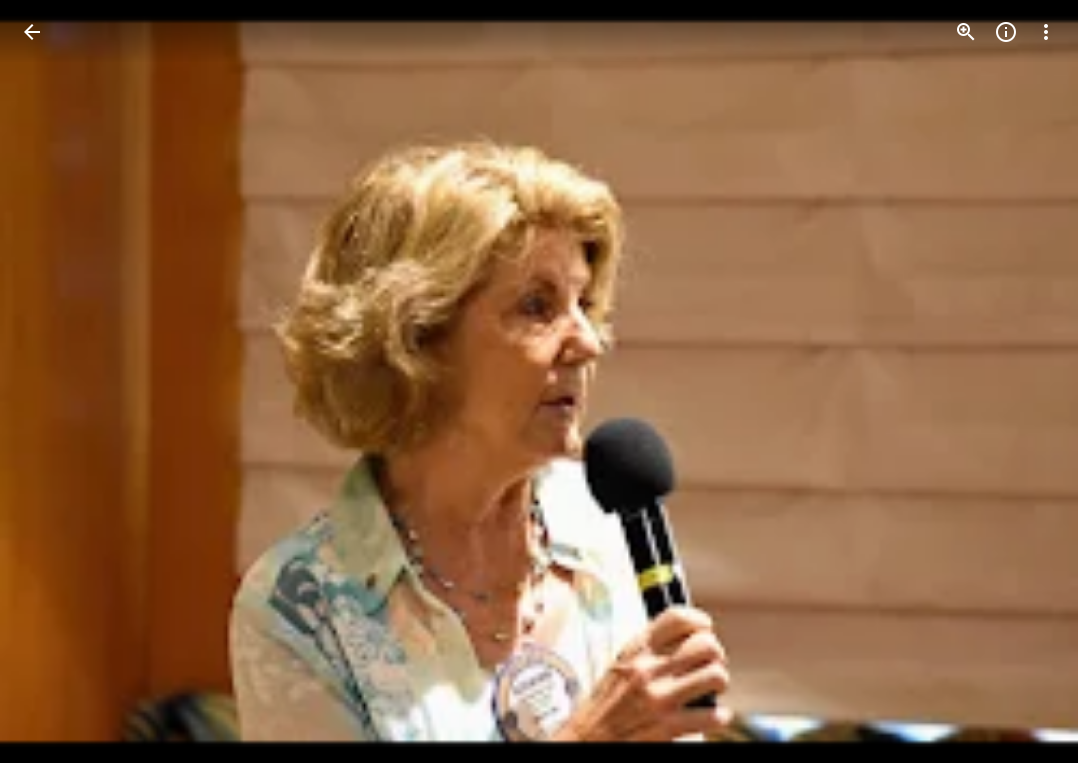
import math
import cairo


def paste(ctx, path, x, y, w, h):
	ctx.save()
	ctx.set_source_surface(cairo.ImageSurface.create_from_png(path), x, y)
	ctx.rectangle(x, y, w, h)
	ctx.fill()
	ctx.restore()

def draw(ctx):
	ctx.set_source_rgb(0, 0, 0)
	ctx.paint()
	paste(ctx, 'media/1.png', 0, 16, 1078, 731)
	gradient = cairo.LinearGradient(539, 0, 539, 64)
	gradient.add_color_stop_rgba(0, 0, 0, 0, 0.6)
	gradient.add_color_stop_rgba(1, 0, 0, 0, 0)
	ctx.set_source(gradient)
	ctx.rectangle(0, 16, 1078, 46)
	ctx.fill()
	paste(ctx, 'media/2.png', 24, 24, 16, 16)
	paste(ctx, 'media/3.png', 957, 23, 18, 18)
	paste(ctx, 'media/4.png', 996, 22, 20, 20)
	paste(ctx, 'media/5.png', 1044, 24, 4, 16)


surface = cairo.ImageSurface(cairo.FORMAT_RGB24, 1078, 763)
ctx = cairo.Context(surface)
options = cairo.FontOptions()
options.set_hint_metrics(cairo.HINT_METRICS_OFF)
options.set_hint_style(cairo.HINT_STYLE_NONE)
ctx.set_font_options(options)
ctx.set_miter_limit(4)
draw(ctx)
surface.write_to_png('image.png')
